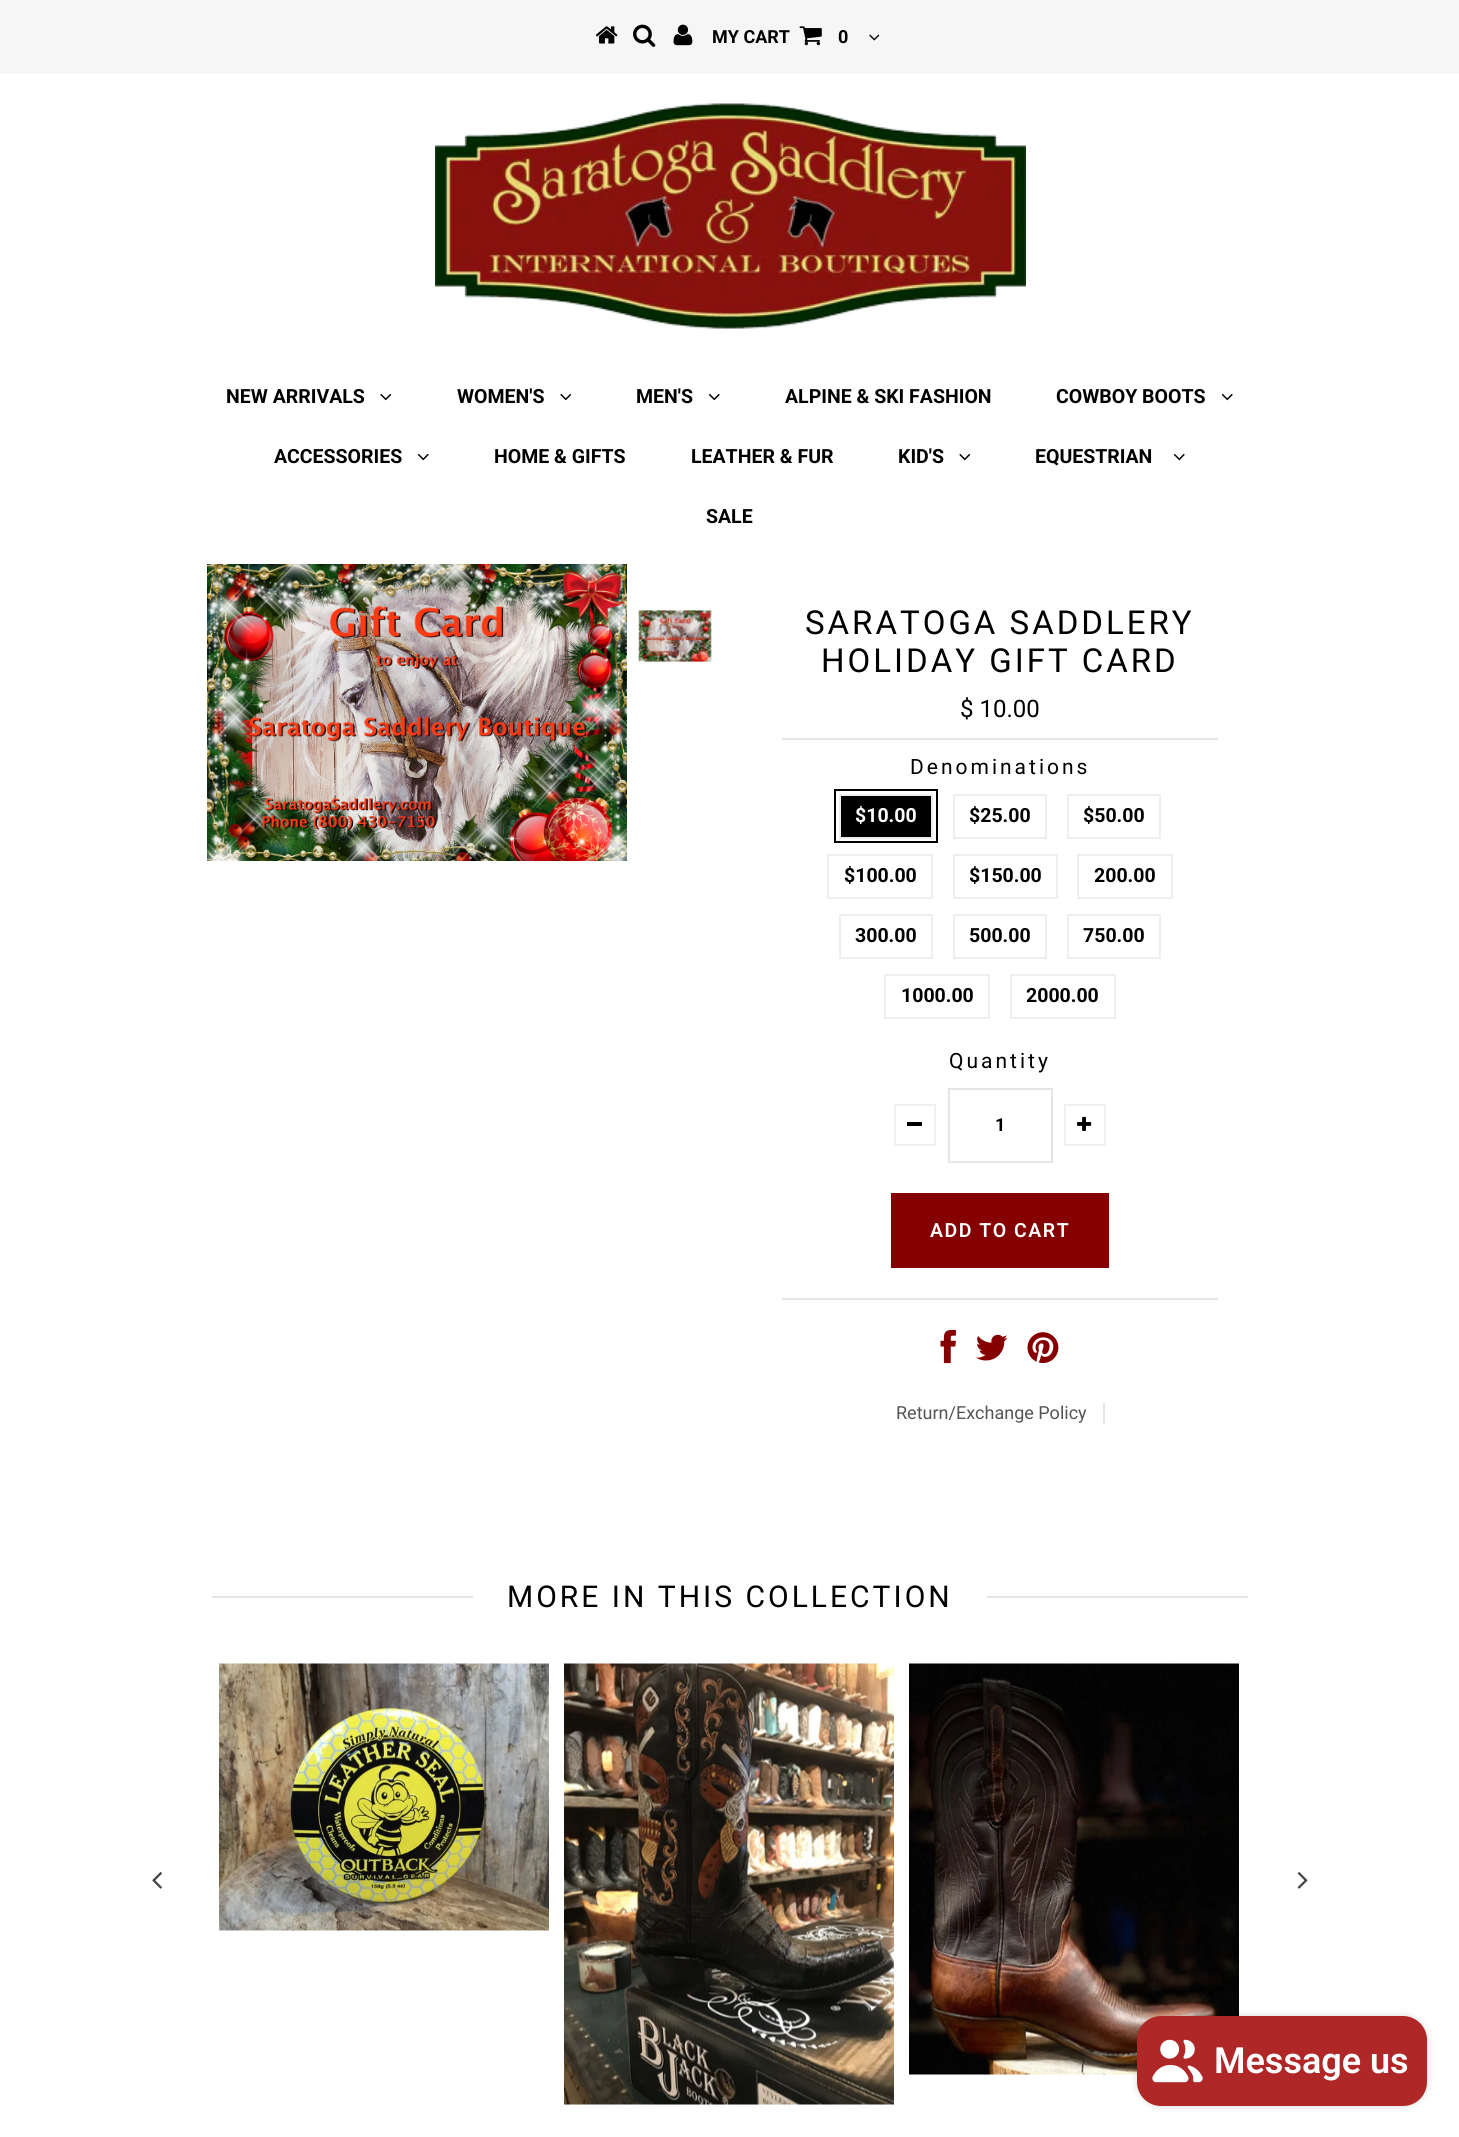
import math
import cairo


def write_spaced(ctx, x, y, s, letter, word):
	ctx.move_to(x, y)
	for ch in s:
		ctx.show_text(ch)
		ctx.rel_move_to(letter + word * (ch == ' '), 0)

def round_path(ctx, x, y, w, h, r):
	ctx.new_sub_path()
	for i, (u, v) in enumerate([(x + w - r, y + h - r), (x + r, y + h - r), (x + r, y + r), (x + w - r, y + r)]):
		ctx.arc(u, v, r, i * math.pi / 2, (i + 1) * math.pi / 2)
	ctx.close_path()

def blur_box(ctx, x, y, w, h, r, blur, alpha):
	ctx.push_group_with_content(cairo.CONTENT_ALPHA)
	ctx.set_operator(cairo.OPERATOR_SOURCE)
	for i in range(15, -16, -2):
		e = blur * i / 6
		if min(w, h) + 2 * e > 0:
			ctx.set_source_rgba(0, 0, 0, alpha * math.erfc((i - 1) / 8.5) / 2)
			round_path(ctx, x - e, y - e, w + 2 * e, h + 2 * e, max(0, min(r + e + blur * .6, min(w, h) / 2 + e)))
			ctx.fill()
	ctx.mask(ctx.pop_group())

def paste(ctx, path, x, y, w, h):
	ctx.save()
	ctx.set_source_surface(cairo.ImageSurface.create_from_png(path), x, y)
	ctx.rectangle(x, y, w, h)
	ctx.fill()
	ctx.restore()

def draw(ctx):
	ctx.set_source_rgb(1, 1, 1)
	ctx.paint()
	ctx.set_source_rgb(0.961, 0.961, 0.961)
	ctx.rectangle(0, 0, 1459, 74)
	ctx.fill()
	paste(ctx, 'media/1.png', 595, 26, 23, 18)
	paste(ctx, 'media/2.png', 633, 24, 23, 23)
	paste(ctx, 'media/3.png', 673, 24, 20, 22)
	ctx.select_font_face('Roboto', cairo.FONT_SLANT_NORMAL, cairo.FONT_WEIGHT_BOLD)
	ctx.set_font_size(18)
	ctx.set_source_rgb(0, 0, 0)
	ctx.move_to(712, 43)
	ctx.show_text('MY CART')
	paste(ctx, 'media/4.png', 799, 26, 23, 20)
	ctx.move_to(838, 43)
	ctx.show_text('0')
	paste(ctx, 'media/5.png', 869, 34, 11, 7)
	paste(ctx, 'media/6.png', 435, 103, 591, 226)
	ctx.set_font_size(19.5)
	ctx.move_to(226, 403)
	ctx.show_text('NEW ARRIVALS')
	paste(ctx, 'media/7.png', 380, 393, 12, 8)
	ctx.move_to(457, 403)
	ctx.show_text('WOMEN\'S')
	paste(ctx, 'media/7.png', 560, 393, 12, 8)
	ctx.move_to(636, 403)
	ctx.show_text('MEN\'S')
	paste(ctx, 'media/8.png', 708, 393, 12, 8)
	ctx.move_to(785, 403)
	ctx.show_text('ALPINE & SKI FASHION')
	ctx.move_to(1056, 403)
	ctx.show_text('COWBOY BOOTS')
	paste(ctx, 'media/8.png', 1221, 393, 12, 8)
	ctx.move_to(274, 463)
	ctx.show_text('ACCESSORIES')
	paste(ctx, 'media/8.png', 417, 453, 12, 8)
	for x, y, s in [
		(494, 463, 'HOME & GIFTS'),
		(691, 463, 'LEATHER & FUR'),
		(898, 463, 'KID\'S'),
	]:
		ctx.move_to(x, y)
		ctx.show_text(s)
	paste(ctx, 'media/7.png', 959, 453, 12, 8)
	ctx.move_to(1035, 463)
	ctx.show_text('EQUESTRIAN')
	paste(ctx, 'media/8.png', 1173, 453, 12, 8)
	ctx.move_to(706, 523)
	ctx.show_text('SALE')
	paste(ctx, 'media/9.png', 207, 564, 420, 297)
	paste(ctx, 'media/10.png', 638, 610, 74, 52)
	ctx.select_font_face('Roboto')
	ctx.set_font_size(33)
	write_spaced(ctx, 805, 634, 'SARATOGA SADDLERY', 3, 0)
	write_spaced(ctx, 821, 672, 'HOLIDAY GIFT CARD', 3, 0)
	ctx.set_font_size(24)
	ctx.move_to(960, 717)
	ctx.show_text('$ 10.00')
	ctx.set_source_rgb(0.898, 0.898, 0.898)
	ctx.rectangle(782, 738, 436, 2)
	ctx.fill()
	ctx.rectangle(782, 1298, 436, 2)
	ctx.fill()
	ctx.set_font_size(21)
	ctx.set_source_rgb(0, 0, 0)
	write_spaced(ctx, 910, 774, 'Denominations', 3, 0)
	ctx.rectangle(840, 795, 92, 43)
	ctx.fill_preserve()
	ctx.set_source_rgb(0.933, 0.933, 0.933)
	ctx.stroke()
	ctx.rectangle(835, 790, 102, 52)
	ctx.set_source_rgb(0, 0, 0)
	ctx.stroke()
	ctx.select_font_face('Roboto', cairo.FONT_SLANT_NORMAL, cairo.FONT_WEIGHT_BOLD)
	ctx.set_font_size(19.5)
	ctx.set_source_rgb(1, 1, 1)
	ctx.move_to(855, 822)
	ctx.show_text('$10.00')
	ctx.rectangle(954, 795, 92, 43)
	ctx.set_source_rgb(0.933, 0.933, 0.933)
	ctx.stroke()
	ctx.set_source_rgb(0, 0, 0)
	ctx.move_to(969, 822)
	ctx.show_text('$25.00')
	ctx.rectangle(1068, 795, 92, 43)
	ctx.set_source_rgb(0.933, 0.933, 0.933)
	ctx.stroke()
	ctx.set_source_rgb(0, 0, 0)
	ctx.move_to(1083, 822)
	ctx.show_text('$50.00')
	ctx.rectangle(828, 855, 104, 43)
	ctx.set_source_rgb(0.933, 0.933, 0.933)
	ctx.stroke()
	ctx.set_source_rgb(0, 0, 0)
	ctx.move_to(844, 882)
	ctx.show_text('$100.00')
	ctx.rectangle(954, 855, 103, 43)
	ctx.set_source_rgb(0.933, 0.933, 0.933)
	ctx.stroke()
	ctx.set_source_rgb(0, 0, 0)
	ctx.move_to(969, 882)
	ctx.show_text('$150.00')
	ctx.rectangle(1078, 855, 94, 43)
	ctx.set_source_rgb(0.933, 0.933, 0.933)
	ctx.stroke()
	ctx.set_source_rgb(0, 0, 0)
	ctx.move_to(1094, 882)
	ctx.show_text('200.00')
	ctx.rectangle(840, 915, 92, 43)
	ctx.set_source_rgb(0.933, 0.933, 0.933)
	ctx.stroke()
	ctx.set_source_rgb(0, 0, 0)
	ctx.move_to(855, 942)
	ctx.show_text('300.00')
	ctx.rectangle(954, 915, 92, 43)
	ctx.set_source_rgb(0.933, 0.933, 0.933)
	ctx.stroke()
	ctx.set_source_rgb(0, 0, 0)
	ctx.move_to(969, 942)
	ctx.show_text('500.00')
	ctx.rectangle(1068, 915, 92, 43)
	ctx.set_source_rgb(0.933, 0.933, 0.933)
	ctx.stroke()
	ctx.set_source_rgb(0, 0, 0)
	ctx.move_to(1083, 942)
	ctx.show_text('750.00')
	ctx.rectangle(885, 975, 104, 43)
	ctx.set_source_rgb(0.933, 0.933, 0.933)
	ctx.stroke()
	ctx.set_source_rgb(0, 0, 0)
	ctx.move_to(901, 1002)
	ctx.show_text('1000.00')
	ctx.rectangle(1011, 975, 104, 43)
	ctx.set_source_rgb(0.933, 0.933, 0.933)
	ctx.stroke()
	ctx.set_source_rgb(0, 0, 0)
	ctx.move_to(1026, 1002)
	ctx.show_text('2000.00')
	ctx.select_font_face('Roboto')
	ctx.set_font_size(21)
	write_spaced(ctx, 949, 1068, 'Quantity', 3, 0)
	ctx.rectangle(895, 1105, 40, 40)
	ctx.set_source_rgb(0.941, 0.941, 0.941)
	ctx.stroke()
	ctx.set_source_rgb(0, 0, 0)
	ctx.rectangle(907, 1122, 15, 4)
	ctx.fill()
	ctx.rectangle(949, 1089, 103, 73)
	ctx.set_source_rgb(0.898, 0.898, 0.898)
	ctx.stroke()
	ctx.select_font_face('Roboto', cairo.FONT_SLANT_NORMAL, cairo.FONT_WEIGHT_BOLD)
	ctx.set_font_size(18)
	ctx.set_source_rgb(0, 0, 0)
	ctx.move_to(995, 1131)
	ctx.show_text('1')
	ctx.rectangle(1065, 1105, 40, 40)
	ctx.set_source_rgb(0.941, 0.941, 0.941)
	ctx.stroke()
	paste(ctx, 'media/11.png', 1077, 1116, 15, 15)
	ctx.set_source_rgb(0.522, 0, 0)
	ctx.rectangle(891, 1193, 218, 75)
	ctx.fill()
	ctx.select_font_face('Roboto SemiBold')
	ctx.set_font_size(19.5)
	ctx.set_source_rgb(1, 1, 1)
	write_spaced(ctx, 930, 1237, 'ADD TO CART', 1.5, 0)
	paste(ctx, 'media/12.png', 940, 1329, 16, 35)
	paste(ctx, 'media/13.png', 976, 1334, 32, 27)
	paste(ctx, 'media/14.png', 1027, 1332, 32, 32)
	ctx.select_font_face('Roboto')
	ctx.set_font_size(18)
	ctx.set_source_rgb(0.333, 0.333, 0.333)
	ctx.move_to(896, 1419)
	ctx.show_text('Return/Exchange Policy')
	ctx.set_source_rgb(0.898, 0.898, 0.898)
	ctx.rectangle(1103, 1403, 2, 21)
	ctx.rectangle(212, 1596, 1036, 2)
	ctx.fill()
	ctx.set_source_rgb(1, 1, 1)
	ctx.rectangle(473, 1596, 514, 2)
	ctx.fill()
	ctx.set_font_size(30)
	ctx.set_source_rgb(0, 0, 0)
	write_spaced(ctx, 507, 1607, 'MORE IN THIS COLLECTION', 3, 0)
	paste(ctx, 'media/15.png', 219, 1663, 330, 268)
	paste(ctx, 'media/16.png', 564, 1663, 330, 442)
	paste(ctx, 'media/17.png', 909, 1663, 330, 412)
	paste(ctx, 'media/18.png', 152, 1872, 10, 17)
	paste(ctx, 'media/19.png', 1297, 1872, 11, 17)
	ctx.set_source_rgb(0, 0, 0)
	blur_box(ctx, 1137, 2016, 290, 90, 24, 4, 0.15)
	ctx.set_source_rgb(0.69, 0.153, 0.153)
	round_path(ctx, 1137, 2016, 290, 90, 24)
	ctx.fill()
	paste(ctx, 'media/20.png', 1152, 2039, 51, 44)
	ctx.select_font_face('Roboto SemiBold')
	ctx.set_font_size(36)
	ctx.set_source_rgb(1, 1, 1)
	ctx.move_to(1214, 2073)
	ctx.show_text('Message us')


surface = cairo.ImageSurface(cairo.FORMAT_RGB24, 1459, 2137)
ctx = cairo.Context(surface)
options = cairo.FontOptions()
options.set_hint_metrics(cairo.HINT_METRICS_OFF)
options.set_hint_style(cairo.HINT_STYLE_NONE)
ctx.set_font_options(options)
ctx.set_miter_limit(4)
draw(ctx)
surface.write_to_png('image.png')
